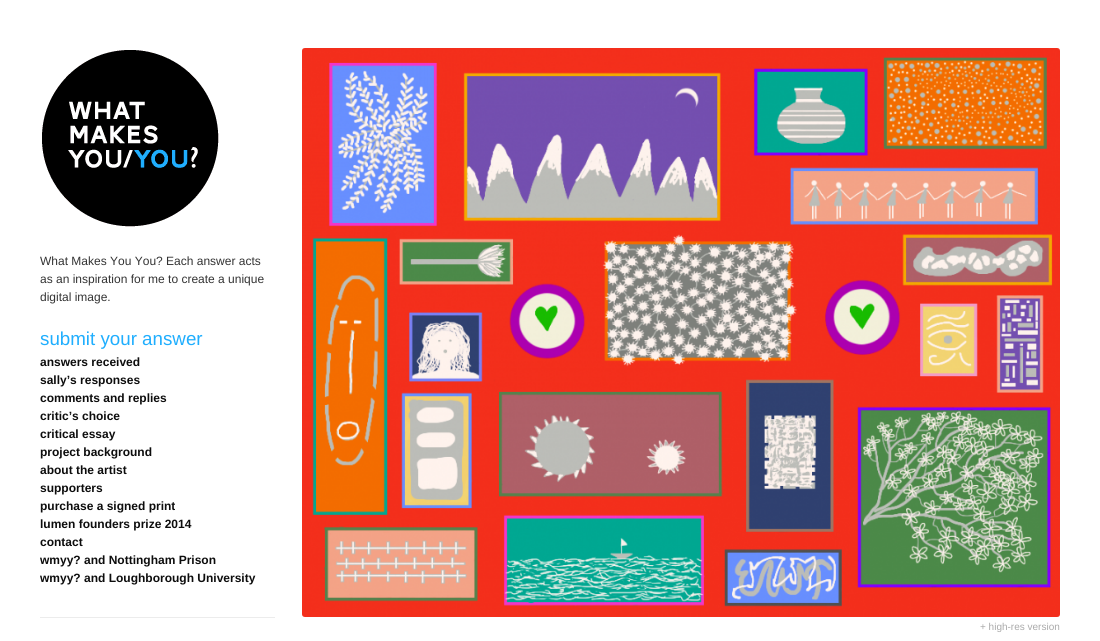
import math
import cairo


def paste(ctx, path, x, y, w, h):
	ctx.save()
	ctx.set_source_surface(cairo.ImageSurface.create_from_png(path), x, y)
	ctx.rectangle(x, y, w, h)
	ctx.fill()
	ctx.restore()

def draw(ctx):
	ctx.set_source_rgb(1, 1, 1)
	ctx.paint()
	paste(ctx, 'media/1.png', 42, 50, 177, 177)
	ctx.select_font_face('Liberation Sans')
	ctx.set_font_size(12)
	ctx.set_source_rgb(0.2, 0.2, 0.2)
	for x, y, s in [
		(40, 265, 'What Makes You You? Each answer acts'),
		(40, 283, 'as an inspiration for me to create a unique'),
		(40, 301, 'digital image.'),
	]:
		ctx.move_to(x, y)
		ctx.show_text(s)
	ctx.set_font_size(18.75)
	ctx.set_source_rgb(0.122, 0.682, 0.996)
	ctx.move_to(40, 345)
	ctx.show_text('submit your answer')
	ctx.select_font_face('Liberation Sans', cairo.FONT_SLANT_NORMAL, cairo.FONT_WEIGHT_BOLD)
	ctx.set_font_size(12)
	ctx.set_source_rgb(0.051, 0.051, 0.051)
	for x, y, s in [
		(40, 366, 'answers received'),
		(40, 384, 'sally’s responses'),
		(40, 402, 'comments and replies'),
		(40, 420, 'critic’s choice'),
		(40, 438, 'critical essay'),
		(40, 456, 'project background'),
		(40, 474, 'about the artist'),
		(40, 492, 'supporters'),
		(40, 510, 'purchase a signed print'),
		(40, 528, 'lumen founders prize 2014'),
		(40, 546, 'contact'),
		(40, 564, 'wmyy? and Nottingham Prison'),
		(40, 582, 'wmyy? and Loughborough University'),
	]:
		ctx.move_to(x, y)
		ctx.show_text(s)
	ctx.set_source_rgb(0.925, 0.925, 0.925)
	ctx.rectangle(40, 617, 235, 1)
	ctx.fill()
	paste(ctx, 'media/2.png', 302, 48, 758, 569)
	ctx.select_font_face('Liberation Sans')
	ctx.set_font_size(10)
	ctx.set_source_rgb(0.667, 0.667, 0.667)
	ctx.move_to(980, 630)
	ctx.show_text('+ high-res version')


surface = cairo.ImageSurface(cairo.FORMAT_RGB24, 1100, 641)
ctx = cairo.Context(surface)
options = cairo.FontOptions()
options.set_hint_metrics(cairo.HINT_METRICS_OFF)
options.set_hint_style(cairo.HINT_STYLE_NONE)
ctx.set_font_options(options)
ctx.set_miter_limit(4)
draw(ctx)
surface.write_to_png('image.png')
